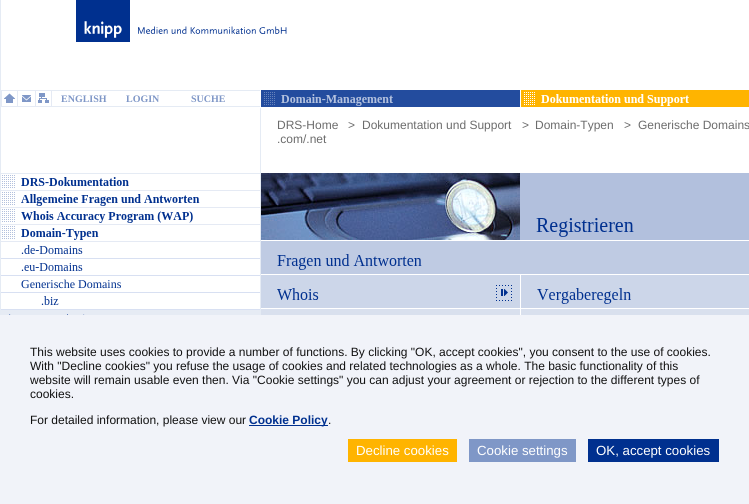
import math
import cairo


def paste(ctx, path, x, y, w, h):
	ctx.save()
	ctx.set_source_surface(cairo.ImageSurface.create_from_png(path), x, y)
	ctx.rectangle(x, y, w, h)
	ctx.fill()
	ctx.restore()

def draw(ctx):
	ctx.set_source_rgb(1, 1, 1)
	ctx.paint()
	ctx.set_source_rgb(0.898, 0.918, 0.957)
	ctx.rectangle(0, 0, 1, 315)
	ctx.fill()
	paste(ctx, 'media/1.png', 76, 0, 211, 42)
	paste(ctx, 'media/2.png', 1, 90, 17, 17)
	paste(ctx, 'media/3.png', 18, 90, 17, 17)
	paste(ctx, 'media/4.png', 35, 90, 17, 17)
	ctx.select_font_face('Liberation Serif', cairo.FONT_SLANT_NORMAL, cairo.FONT_WEIGHT_BOLD)
	ctx.set_font_size(10)
	ctx.set_source_rgb(0.498, 0.592, 0.78)
	ctx.move_to(61, 102)
	ctx.show_text('ENGLISH')
	ctx.set_source_rgb(0.898, 0.918, 0.957)
	ctx.rectangle(52, 90, 208, 1)
	ctx.fill()
	ctx.rectangle(52, 106, 208, 1)
	ctx.fill()
	ctx.set_source_rgb(0.498, 0.592, 0.78)
	ctx.move_to(126, 102)
	ctx.show_text('LOGIN')
	ctx.move_to(191, 102)
	ctx.show_text('SUCHE')
	paste(ctx, 'media/5.png', 260, 90, 260, 17)
	paste(ctx, 'media/6.png', 520, 90, 229, 17)
	ctx.set_source_rgb(0.898, 0.918, 0.957)
	ctx.rectangle(260, 108, 1, 207)
	ctx.fill()
	ctx.select_font_face('Liberation Sans')
	ctx.set_font_size(12)
	ctx.set_source_rgb(0.424, 0.424, 0.424)
	for x, y, s in [
		(277, 129, 'DRS-Home'),
		(348, 129, '>'),
		(362, 129, 'Dokumentation und Support'),
		(522, 129, '>'),
		(535, 129, 'Domain-Typen'),
		(624, 129, '>'),
		(638, 129, 'Generische Domains'),
		(277, 143, '.com/.net'),
	]:
		ctx.move_to(x, y)
		ctx.show_text(s)
	ctx.set_source_rgb(0.898, 0.918, 0.957)
	ctx.rectangle(1, 173, 259, 1)
	ctx.fill()
	paste(ctx, 'media/7.png', 1, 175, 259, 16)
	paste(ctx, 'media/8.png', 1, 192, 259, 16)
	paste(ctx, 'media/9.png', 1, 209, 259, 16)
	paste(ctx, 'media/10.png', 1, 226, 259, 16)
	paste(ctx, 'media/11.png', 1, 245, 259, 14)
	paste(ctx, 'media/12.png', 1, 263, 259, 13)
	ctx.select_font_face('Liberation Serif')
	ctx.set_source_rgb(0, 0.188, 0.561)
	ctx.move_to(21, 288)
	ctx.show_text('Generische Domains')
	ctx.set_source_rgb(0.847, 0.878, 0.949)
	ctx.rectangle(1, 292, 259, 1)
	ctx.fill()
	paste(ctx, 'media/13.png', 1, 296, 259, 14)
	paste(ctx, 'media/14.png', 1, 310, 259, 5)
	paste(ctx, 'media/15.png', 261, 173, 259, 67)
	paste(ctx, 'media/16.png', 520, 173, 229, 67)
	paste(ctx, 'media/17.png', 261, 241, 488, 33)
	paste(ctx, 'media/18.png', 261, 275, 259, 33)
	paste(ctx, 'media/19.png', 521, 275, 228, 33)
	paste(ctx, 'media/20.png', 261, 309, 259, 6)
	paste(ctx, 'media/21.png', 521, 309, 228, 6)
	ctx.set_source_rgb(0.945, 0.953, 0.976)
	ctx.rectangle(0, 315, 749, 189)
	ctx.fill()
	ctx.select_font_face('Liberation Sans')
	ctx.set_source_rgb(0.067, 0.067, 0.067)
	for x, y, s in [
		(30, 356, 'This website uses cookies to provide a number of functions. By clicking "OK, accept cookies", you consent to the use of cookies.'),
		(30, 370, 'With "Decline cookies" you refuse the usage of cookies and related technologies as a whole. The basic functionality of this'),
		(30, 384, 'website will remain usable even then. Via "Cookie settings" you can adjust your agreement or rejection to the different types of'),
		(30, 398, 'cookies.'),
		(30, 424, 'For detailed information, please view our'),
	]:
		ctx.move_to(x, y)
		ctx.show_text(s)
	ctx.set_source_rgb(0, 0.188, 0.561)
	ctx.rectangle(249, 425, 79, 1)
	ctx.fill()
	ctx.select_font_face('Liberation Sans', cairo.FONT_SLANT_NORMAL, cairo.FONT_WEIGHT_BOLD)
	ctx.move_to(249, 424)
	ctx.show_text('Cookie Policy')
	ctx.select_font_face('Liberation Sans')
	ctx.set_source_rgb(0.067, 0.067, 0.067)
	ctx.move_to(328, 424)
	ctx.show_text('.')
	ctx.set_source_rgb(1, 0.706, 0)
	ctx.rectangle(348, 439, 109, 23)
	ctx.fill()
	ctx.set_font_size(13.25)
	ctx.set_source_rgb(1, 1, 1)
	ctx.move_to(356, 455)
	ctx.show_text('Decline cookies')
	ctx.set_source_rgb(0.498, 0.592, 0.78)
	ctx.rectangle(469, 439, 107, 23)
	ctx.fill()
	ctx.set_source_rgb(1, 1, 1)
	ctx.move_to(477, 455)
	ctx.show_text('Cookie settings')
	ctx.set_source_rgb(0, 0.188, 0.561)
	ctx.rectangle(588, 439, 131, 23)
	ctx.fill()
	ctx.set_source_rgb(1, 1, 1)
	ctx.move_to(596, 455)
	ctx.show_text('OK, accept cookies')


surface = cairo.ImageSurface(cairo.FORMAT_RGB24, 749, 504)
ctx = cairo.Context(surface)
options = cairo.FontOptions()
options.set_hint_metrics(cairo.HINT_METRICS_OFF)
options.set_hint_style(cairo.HINT_STYLE_NONE)
ctx.set_font_options(options)
ctx.set_miter_limit(4)
draw(ctx)
surface.write_to_png('image.png')
